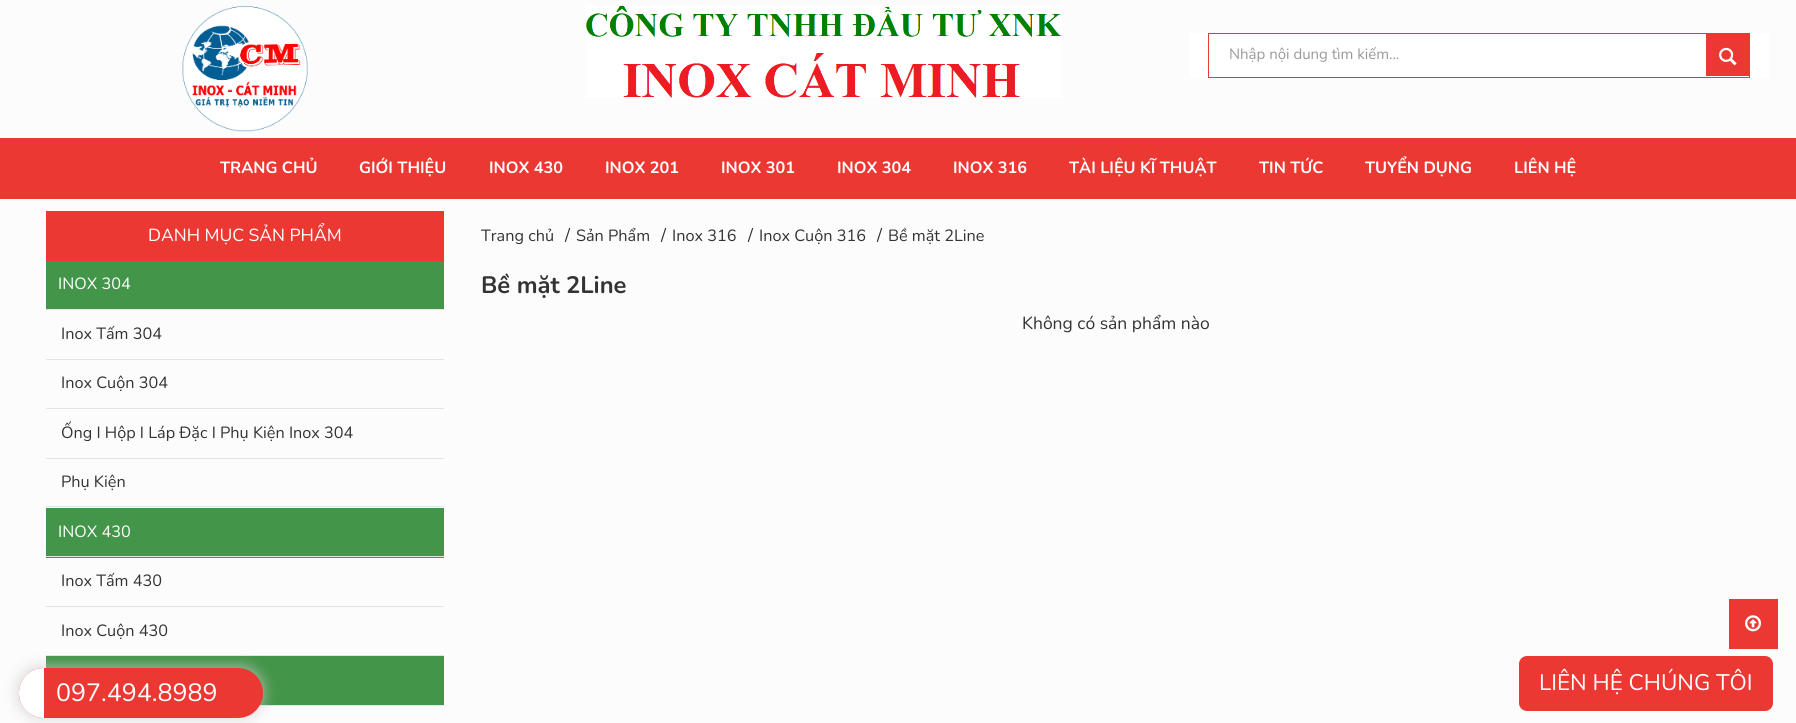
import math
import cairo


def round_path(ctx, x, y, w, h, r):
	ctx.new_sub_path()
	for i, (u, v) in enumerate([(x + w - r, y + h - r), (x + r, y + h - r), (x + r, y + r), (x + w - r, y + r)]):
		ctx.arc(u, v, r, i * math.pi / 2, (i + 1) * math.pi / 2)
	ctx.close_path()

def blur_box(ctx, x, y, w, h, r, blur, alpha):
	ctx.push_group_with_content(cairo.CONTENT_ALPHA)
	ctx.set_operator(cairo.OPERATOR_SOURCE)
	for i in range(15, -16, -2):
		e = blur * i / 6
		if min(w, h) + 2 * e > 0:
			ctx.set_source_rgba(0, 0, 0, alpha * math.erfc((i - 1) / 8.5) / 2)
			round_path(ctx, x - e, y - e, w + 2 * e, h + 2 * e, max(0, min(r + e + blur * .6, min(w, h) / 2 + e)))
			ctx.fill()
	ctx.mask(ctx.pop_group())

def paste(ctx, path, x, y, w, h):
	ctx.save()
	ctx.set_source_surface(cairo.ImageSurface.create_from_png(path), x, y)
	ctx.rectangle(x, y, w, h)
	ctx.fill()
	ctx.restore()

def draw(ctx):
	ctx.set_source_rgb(0.988, 0.988, 0.988)
	ctx.paint()
	paste(ctx, 'media/1.png', 182, 6, 126, 126)
	paste(ctx, 'media/2.png', 586, 5, 476, 93)
	ctx.set_source_rgb(1, 1, 1)
	ctx.rectangle(1189, 33, 580, 45)
	ctx.fill()
	ctx.rectangle(1208.5, 33.5, 541, 44)
	ctx.set_source_rgb(0.925, 0.22, 0.196)
	ctx.set_line_width(1)
	ctx.stroke()
	ctx.select_font_face('Nunito')
	ctx.set_font_size(15)
	ctx.set_source_rgb(0.6, 0.6, 0.6)
	ctx.move_to(1229, 59)
	ctx.show_text('Nhập nội dung tìm kiếm...')
	ctx.set_source_rgb(0.925, 0.22, 0.196)
	ctx.rectangle(1706, 34, 43, 42)
	ctx.fill()
	paste(ctx, 'media/3.png', 1719, 47, 18, 19)
	ctx.rectangle(0, 138, 1796, 61)
	ctx.fill()
	ctx.select_font_face('Nunito', cairo.FONT_SLANT_NORMAL, cairo.FONT_WEIGHT_BOLD)
	ctx.set_font_size(16.25)
	ctx.set_source_rgb(1, 1, 1)
	for x, y, s in [
		(220, 173, 'TRANG CHỦ'),
		(359, 173, 'GIỚI THIỆU'),
		(489, 173, 'INOX 430'),
		(605, 173, 'INOX 201'),
		(721, 173, 'INOX 301'),
		(837, 173, 'INOX 304'),
		(953, 173, 'INOX 316'),
		(1069, 173, 'TÀI LIỆU KĨ THUẬT'),
		(1259, 173, 'TIN TỨC'),
		(1365, 173, 'TUYỂN DỤNG'),
		(1514, 173, 'LIÊN HỆ'),
	]:
		ctx.move_to(x, y)
		ctx.show_text(s)
	ctx.set_source_rgb(0.925, 0.22, 0.196)
	ctx.rectangle(46, 211, 398, 50)
	ctx.fill()
	ctx.select_font_face('Nunito')
	ctx.set_font_size(17.5)
	ctx.set_source_rgb(1, 1, 1)
	ctx.move_to(148, 241)
	ctx.show_text('DANH MỤC SẢN PHẨM')
	ctx.set_source_rgb(0.263, 0.584, 0.286)
	ctx.rectangle(46, 261, 398, 48)
	ctx.fill()
	ctx.set_source_rgb(0.894, 0.894, 0.894)
	ctx.rectangle(46, 309, 398, 1)
	ctx.fill()
	ctx.set_font_size(16.25)
	ctx.set_source_rgb(1, 1, 1)
	ctx.move_to(58, 289)
	ctx.show_text('INOX 304')
	ctx.set_source_rgb(0.894, 0.894, 0.894)
	ctx.rectangle(46, 359, 398, 1)
	ctx.fill()
	ctx.set_source_rgb(0.2, 0.2, 0.2)
	ctx.move_to(61, 339)
	ctx.show_text('Inox Tấm 304')
	ctx.set_source_rgb(0.894, 0.894, 0.894)
	ctx.rectangle(46, 408, 398, 1)
	ctx.fill()
	ctx.set_source_rgb(0.2, 0.2, 0.2)
	ctx.move_to(61, 388)
	ctx.show_text('Inox Cuộn 304')
	ctx.set_source_rgb(0.894, 0.894, 0.894)
	ctx.rectangle(46, 458, 398, 1)
	ctx.fill()
	ctx.set_source_rgb(0.2, 0.2, 0.2)
	ctx.move_to(61, 438)
	ctx.show_text('Ống I Hộp I Láp Đặc I Phụ Kiện Inox 304')
	ctx.set_source_rgb(0.894, 0.894, 0.894)
	ctx.rectangle(46, 506, 398, 1)
	ctx.fill()
	ctx.set_source_rgb(0.2, 0.2, 0.2)
	ctx.move_to(61, 487)
	ctx.show_text('Phụ Kiện')
	ctx.set_source_rgb(0.263, 0.584, 0.286)
	ctx.rectangle(46, 508, 398, 50)
	ctx.fill()
	ctx.set_source_rgb(0.894, 0.894, 0.894)
	ctx.rectangle(46, 556, 398, 1)
	ctx.fill()
	ctx.set_source_rgb(1, 1, 1)
	ctx.move_to(58, 537)
	ctx.show_text('INOX 430')
	ctx.set_source_rgb(0.894, 0.894, 0.894)
	ctx.rectangle(46, 606, 398, 1)
	ctx.fill()
	ctx.set_source_rgb(0.2, 0.2, 0.2)
	ctx.move_to(61, 586)
	ctx.show_text('Inox Tấm 430')
	ctx.set_source_rgb(0.894, 0.894, 0.894)
	ctx.rectangle(46, 655, 398, 1)
	ctx.fill()
	ctx.set_source_rgb(0.2, 0.2, 0.2)
	ctx.move_to(61, 636)
	ctx.show_text('Inox Cuộn 430')
	ctx.set_source_rgb(0.263, 0.584, 0.286)
	ctx.rectangle(46, 656, 398, 49)
	ctx.fill()
	ctx.set_source_rgb(0.894, 0.894, 0.894)
	ctx.rectangle(259, 705, 185, 1)
	ctx.fill()
	ctx.set_source_rgb(0.2, 0.2, 0.2)
	ctx.move_to(481, 241)
	ctx.show_text('Trang chủ')
	ctx.set_font_size(17.5)
	ctx.move_to(565, 241)
	ctx.show_text('/')
	ctx.set_font_size(16.25)
	ctx.move_to(576, 241)
	ctx.show_text('Sản Phẩm')
	ctx.set_font_size(17.5)
	ctx.move_to(661, 241)
	ctx.show_text('/')
	ctx.set_font_size(16.25)
	ctx.move_to(672, 241)
	ctx.show_text('Inox 316')
	ctx.set_font_size(17.5)
	ctx.move_to(748, 241)
	ctx.show_text('/')
	ctx.set_font_size(16.25)
	ctx.move_to(759, 241)
	ctx.show_text('Inox Cuộn 316')
	ctx.set_font_size(17.5)
	ctx.move_to(877, 241)
	ctx.show_text('/')
	ctx.set_font_size(16.25)
	ctx.move_to(888, 241)
	ctx.show_text('Bề mặt 2Line')
	ctx.select_font_face('Nunito', cairo.FONT_SLANT_NORMAL, cairo.FONT_WEIGHT_BOLD)
	ctx.set_font_size(23.75)
	ctx.move_to(481, 293)
	ctx.show_text('Bề mặt 2Line')
	ctx.select_font_face('Nunito')
	ctx.set_font_size(17.5)
	ctx.move_to(1022, 329)
	ctx.show_text('Không có sản phẩm nào')
	ctx.set_source_rgb(0.925, 0.22, 0.196)
	ctx.rectangle(1729, 599, 49, 50)
	ctx.fill()
	paste(ctx, 'media/4.png', 1745, 615, 17, 17)
	ctx.set_source_rgb(0.8, 0.8, 0.8)
	blur_box(ctx, 16, 665, 249, 55, 27.5, 6, 0.6)
	ctx.set_source_rgb(0.925, 0.22, 0.196)
	round_path(ctx, 19, 668, 244, 50, 25)
	ctx.fill()
	ctx.set_source_rgb(1, 1, 1)
	ctx.new_path()
	ctx.move_to(44, 668)
	ctx.line_to(44, 718)
	ctx.curve_to(30, 718, 19, 707, 19, 693)
	ctx.curve_to(19, 679, 30, 668, 44, 668)
	ctx.close_path()
	ctx.fill()
	ctx.set_font_size(25)
	ctx.move_to(56, 701)
	ctx.show_text('097.494.8989')
	ctx.set_source_rgb(0.925, 0.22, 0.196)
	round_path(ctx, 1519, 656, 254, 55, 8)
	ctx.fill()
	ctx.set_font_size(22.5)
	ctx.set_source_rgb(1, 1, 1)
	ctx.move_to(1539, 690)
	ctx.show_text('LIÊN HỆ CHÚNG TÔI')


surface = cairo.ImageSurface(cairo.FORMAT_RGB24, 1796, 723)
ctx = cairo.Context(surface)
options = cairo.FontOptions()
options.set_hint_metrics(cairo.HINT_METRICS_OFF)
options.set_hint_style(cairo.HINT_STYLE_NONE)
ctx.set_font_options(options)
ctx.set_miter_limit(4)
draw(ctx)
surface.write_to_png('image.png')
